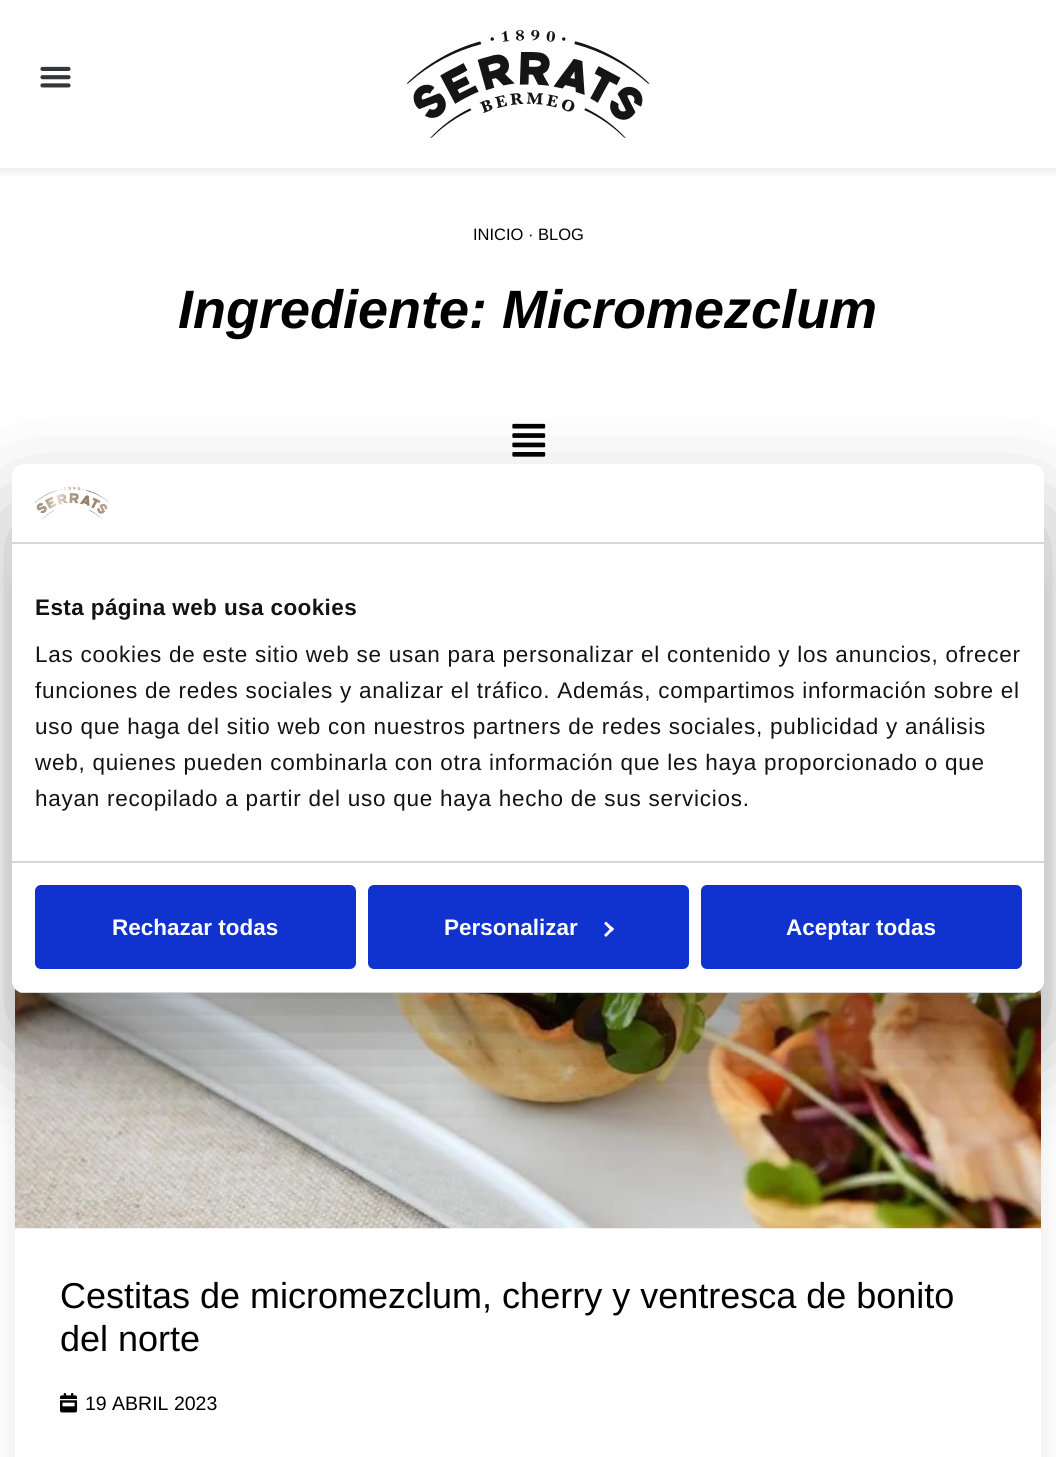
import math
import cairo


def write_spaced(ctx, x, y, s, letter, word):
	ctx.move_to(x, y)
	for ch in s:
		ctx.show_text(ch)
		ctx.rel_move_to(letter + word * (ch == ' '), 0)

def round_path(ctx, x, y, w, h, r):
	ctx.new_sub_path()
	for i, (u, v) in enumerate([(x + w - r, y + h - r), (x + r, y + h - r), (x + r, y + r), (x + w - r, y + r)]):
		ctx.arc(u, v, r, i * math.pi / 2, (i + 1) * math.pi / 2)
	ctx.close_path()

def blur_box(ctx, x, y, w, h, r, blur, alpha):
	ctx.push_group_with_content(cairo.CONTENT_ALPHA)
	ctx.set_operator(cairo.OPERATOR_SOURCE)
	for i in range(15, -16, -2):
		e = blur * i / 6
		if min(w, h) + 2 * e > 0:
			ctx.set_source_rgba(0, 0, 0, alpha * math.erfc((i - 1) / 8.5) / 2)
			round_path(ctx, x - e, y - e, w + 2 * e, h + 2 * e, max(0, min(r + e + blur * .6, min(w, h) / 2 + e)))
			ctx.fill()
	ctx.mask(ctx.pop_group())

def paste(ctx, path, x, y, w, h):
	ctx.save()
	ctx.set_source_surface(cairo.ImageSurface.create_from_png(path), x, y)
	ctx.rectangle(x, y, w, h)
	ctx.fill()
	ctx.restore()

def draw(ctx):
	ctx.set_source_rgb(1, 1, 1)
	ctx.paint()
	ctx.save()
	ctx.rectangle(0, 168, 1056, 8)
	ctx.clip()
	ctx.set_source_rgb(0, 0, 0)
	blur_box(ctx, 0, 0, 1056, 168, 0, 7.5, 0.13)
	ctx.restore()
	paste(ctx, 'media/1.png', 40, 66, 31, 22)
	paste(ctx, 'media/2.png', 407, 30, 243, 108)
	ctx.select_font_face('Liberation Sans')
	ctx.set_font_size(16.5)
	ctx.set_source_rgb(0, 0, 0)
	ctx.move_to(473, 240)
	ctx.show_text('INICIO · BLOG')
	ctx.select_font_face('Liberation Sans', cairo.FONT_SLANT_ITALIC, cairo.FONT_WEIGHT_BOLD)
	ctx.set_font_size(54)
	ctx.move_to(178, 328)
	ctx.show_text('Ingrediente: Micromezclum')
	paste(ctx, 'media/3.png', 512, 423, 34, 34)
	ctx.save()
	ctx.set_fill_rule(cairo.FILL_RULE_EVEN_ODD)
	ctx.new_path()
	ctx.move_to(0, 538)
	ctx.line_to(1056, 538)
	ctx.line_to(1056, 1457)
	ctx.line_to(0, 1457)
	ctx.close_path()
	ctx.move_to(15, 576)
	ctx.line_to(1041, 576)
	ctx.line_to(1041, 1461)
	ctx.line_to(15, 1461)
	ctx.close_path()
	ctx.clip()
	ctx.set_source_rgb(0, 0, 0)
	blur_box(ctx, 15, 584, 1026, 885, 0, 15, 0.1)
	ctx.restore()
	paste(ctx, 'media/4.png', 15, 988, 1026, 241)
	ctx.select_font_face('Liberation Sans')
	ctx.set_font_size(36)
	ctx.move_to(60, 1308)
	ctx.show_text('Cestitas de micromezclum, cherry y ventresca de bonito')
	ctx.move_to(60, 1351)
	ctx.show_text('del norte')
	paste(ctx, 'media/5.png', 60, 1392, 18, 21)
	ctx.set_font_size(19.5)
	ctx.move_to(85, 1410)
	ctx.show_text('19 ABRIL 2023')
	ctx.set_source_rgb(0, 0, 0)
	blur_box(ctx, 12, 512, 1032, 529, 12, 51, 0.3)
	ctx.set_source_rgb(1, 1, 1)
	round_path(ctx, 12, 464, 1032, 529, 12)
	ctx.fill()
	ctx.set_source_rgb(0.839, 0.839, 0.839)
	ctx.rectangle(12, 542, 1032, 2)
	ctx.fill()
	paste(ctx, 'media/6.png', 34, 486, 76, 34)
	ctx.rectangle(12, 861, 1032, 2)
	ctx.fill()
	ctx.select_font_face('Liberation Sans', cairo.FONT_SLANT_NORMAL, cairo.FONT_WEIGHT_BOLD)
	ctx.set_font_size(22.5)
	ctx.set_source_rgb(0.078, 0.078, 0.078)
	write_spaced(ctx, 35, 615, 'Esta página web usa cookies', 0.4, 0)
	ctx.select_font_face('Liberation Sans')
	for x, y, s in [
		(35, 662, 'Las cookies de este sitio web se usan para personalizar el contenido y los anuncios, ofrecer'),
		(35, 698, 'funciones de redes sociales y analizar el tráfico. Además, compartimos información sobre el'),
		(35, 734, 'uso que haga del sitio web con nuestros partners de redes sociales, publicidad y análisis'),
		(35, 770, 'web, quienes pueden combinarla con otra información que les haya proporcionado o que'),
		(35, 806, 'hayan recopilado a partir del uso que haya hecho de sus servicios.'),
	]:
		write_spaced(ctx, x, y, s, 0.75, 0)
	ctx.save()
	round_path(ctx, 12, 464, 1032, 529, 12)
	ctx.clip()
	ctx.set_source_rgb(0.839, 0.839, 0.839)
	ctx.rectangle(12, 992, 1032, 1)
	ctx.fill()
	ctx.restore()
	ctx.set_source_rgb(0.063, 0.196, 0.812)
	round_path(ctx, 36.5, 886.5, 318, 81, 4.5)
	ctx.fill_preserve()
	ctx.set_line_width(3)
	ctx.stroke()
	ctx.select_font_face('Liberation Sans', cairo.FONT_SLANT_NORMAL, cairo.FONT_WEIGHT_BOLD)
	ctx.set_source_rgb(1, 1, 1)
	ctx.move_to(112, 935)
	ctx.show_text('Rechazar todas')
	ctx.set_source_rgb(0.063, 0.196, 0.812)
	round_path(ctx, 369.5, 886.5, 318, 81, 4.5)
	ctx.fill_preserve()
	ctx.stroke()
	ctx.set_source_rgb(1, 1, 1)
	ctx.move_to(444, 935)
	ctx.show_text('Personalizar')
	ctx.new_path()
	ctx.move_to(606, 921.5)
	ctx.line_to(614, 929)
	ctx.line_to(612, 931.5)
	ctx.line_to(604, 923.5)
	ctx.close_path()
	ctx.fill()
	ctx.new_path()
	ctx.move_to(612, 927)
	ctx.line_to(614, 929)
	ctx.line_to(606, 937)
	ctx.line_to(604, 935)
	ctx.close_path()
	ctx.fill()
	ctx.set_source_rgb(0.063, 0.196, 0.812)
	round_path(ctx, 702.5, 886.5, 318, 81, 4.5)
	ctx.fill_preserve()
	ctx.stroke()
	ctx.set_source_rgb(1, 1, 1)
	ctx.move_to(786, 935)
	ctx.show_text('Aceptar todas')


surface = cairo.ImageSurface(cairo.FORMAT_RGB24, 1056, 1457)
ctx = cairo.Context(surface)
options = cairo.FontOptions()
options.set_hint_metrics(cairo.HINT_METRICS_OFF)
options.set_hint_style(cairo.HINT_STYLE_NONE)
ctx.set_font_options(options)
ctx.set_miter_limit(4)
draw(ctx)
surface.write_to_png('image.png')
